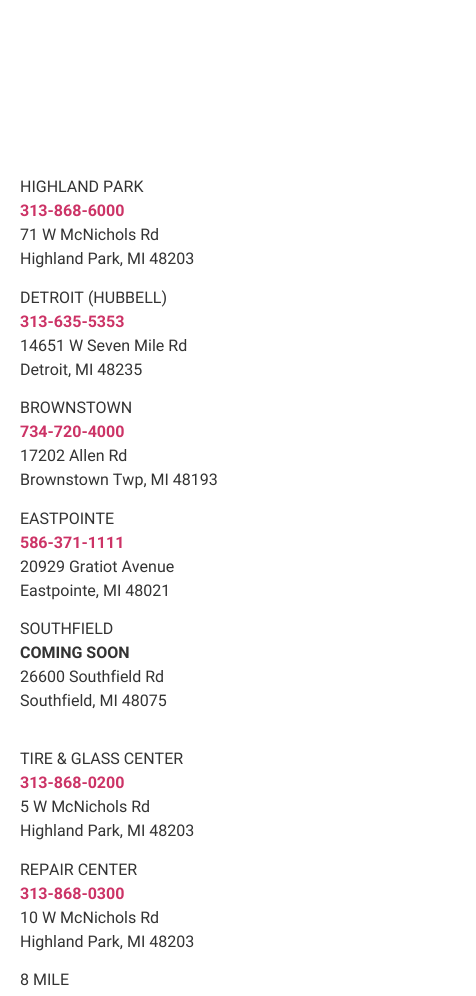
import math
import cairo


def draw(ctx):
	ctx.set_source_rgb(1, 1, 1)
	ctx.paint()
	ctx.select_font_face('Roboto')
	ctx.set_font_size(16)
	ctx.set_source_rgb(0.2, 0.2, 0.2)
	ctx.move_to(20, 192)
	ctx.show_text('HIGHLAND PARK')
	ctx.select_font_face('Roboto', cairo.FONT_SLANT_NORMAL, cairo.FONT_WEIGHT_BOLD)
	ctx.set_source_rgb(0.8, 0.2, 0.4)
	ctx.move_to(20, 216)
	ctx.show_text('313-868-6000')
	ctx.select_font_face('Roboto')
	ctx.set_source_rgb(0.2, 0.2, 0.2)
	for x, y, s in [
		(20, 240, '71 W McNichols Rd'),
		(20, 264, 'Highland Park, MI 48203'),
		(20, 303, 'DETROIT (HUBBELL)'),
	]:
		ctx.move_to(x, y)
		ctx.show_text(s)
	ctx.select_font_face('Roboto', cairo.FONT_SLANT_NORMAL, cairo.FONT_WEIGHT_BOLD)
	ctx.set_source_rgb(0.8, 0.2, 0.4)
	ctx.move_to(20, 327)
	ctx.show_text('313-635-5353')
	ctx.select_font_face('Roboto')
	ctx.set_source_rgb(0.2, 0.2, 0.2)
	for x, y, s in [
		(20, 351, '14651 W Seven Mile Rd'),
		(20, 375, 'Detroit, MI 48235'),
		(20, 413, 'BROWNSTOWN'),
	]:
		ctx.move_to(x, y)
		ctx.show_text(s)
	ctx.select_font_face('Roboto', cairo.FONT_SLANT_NORMAL, cairo.FONT_WEIGHT_BOLD)
	ctx.set_source_rgb(0.8, 0.2, 0.4)
	ctx.move_to(20, 437)
	ctx.show_text('734-720-4000')
	ctx.select_font_face('Roboto')
	ctx.set_source_rgb(0.2, 0.2, 0.2)
	for x, y, s in [
		(20, 461, '17202 Allen Rd'),
		(20, 485, 'Brownstown Twp, MI 48193'),
		(20, 524, 'EASTPOINTE'),
	]:
		ctx.move_to(x, y)
		ctx.show_text(s)
	ctx.select_font_face('Roboto', cairo.FONT_SLANT_NORMAL, cairo.FONT_WEIGHT_BOLD)
	ctx.set_source_rgb(0.8, 0.2, 0.4)
	ctx.move_to(20, 548)
	ctx.show_text('586-371-1111')
	ctx.select_font_face('Roboto')
	ctx.set_source_rgb(0.2, 0.2, 0.2)
	for x, y, s in [
		(20, 572, '20929 Gratiot Avenue'),
		(20, 596, 'Eastpointe, MI 48021'),
		(20, 634, 'SOUTHFIELD'),
	]:
		ctx.move_to(x, y)
		ctx.show_text(s)
	ctx.select_font_face('Roboto', cairo.FONT_SLANT_NORMAL, cairo.FONT_WEIGHT_BOLD)
	ctx.move_to(20, 658)
	ctx.show_text('COMING SOON')
	ctx.select_font_face('Roboto')
	for x, y, s in [
		(20, 682, '26600 Southfield Rd'),
		(20, 706, 'Southfield, MI 48075'),
		(20, 764, 'TIRE & GLASS CENTER'),
	]:
		ctx.move_to(x, y)
		ctx.show_text(s)
	ctx.select_font_face('Roboto', cairo.FONT_SLANT_NORMAL, cairo.FONT_WEIGHT_BOLD)
	ctx.set_source_rgb(0.8, 0.2, 0.4)
	ctx.move_to(20, 788)
	ctx.show_text('313-868-0200')
	ctx.select_font_face('Roboto')
	ctx.set_source_rgb(0.2, 0.2, 0.2)
	for x, y, s in [
		(20, 812, '5 W McNichols Rd'),
		(20, 836, 'Highland Park, MI 48203'),
		(20, 875, 'REPAIR CENTER'),
	]:
		ctx.move_to(x, y)
		ctx.show_text(s)
	ctx.select_font_face('Roboto', cairo.FONT_SLANT_NORMAL, cairo.FONT_WEIGHT_BOLD)
	ctx.set_source_rgb(0.8, 0.2, 0.4)
	ctx.move_to(20, 899)
	ctx.show_text('313-868-0300')
	ctx.select_font_face('Roboto')
	ctx.set_source_rgb(0.2, 0.2, 0.2)
	for x, y, s in [
		(20, 923, '10 W McNichols Rd'),
		(20, 947, 'Highland Park, MI 48203'),
		(20, 985, '8 MILE'),
	]:
		ctx.move_to(x, y)
		ctx.show_text(s)


surface = cairo.ImageSurface(cairo.FORMAT_RGB24, 476, 996)
ctx = cairo.Context(surface)
options = cairo.FontOptions()
options.set_hint_metrics(cairo.HINT_METRICS_OFF)
options.set_hint_style(cairo.HINT_STYLE_NONE)
ctx.set_font_options(options)
ctx.set_miter_limit(4)
draw(ctx)
surface.write_to_png('image.png')
